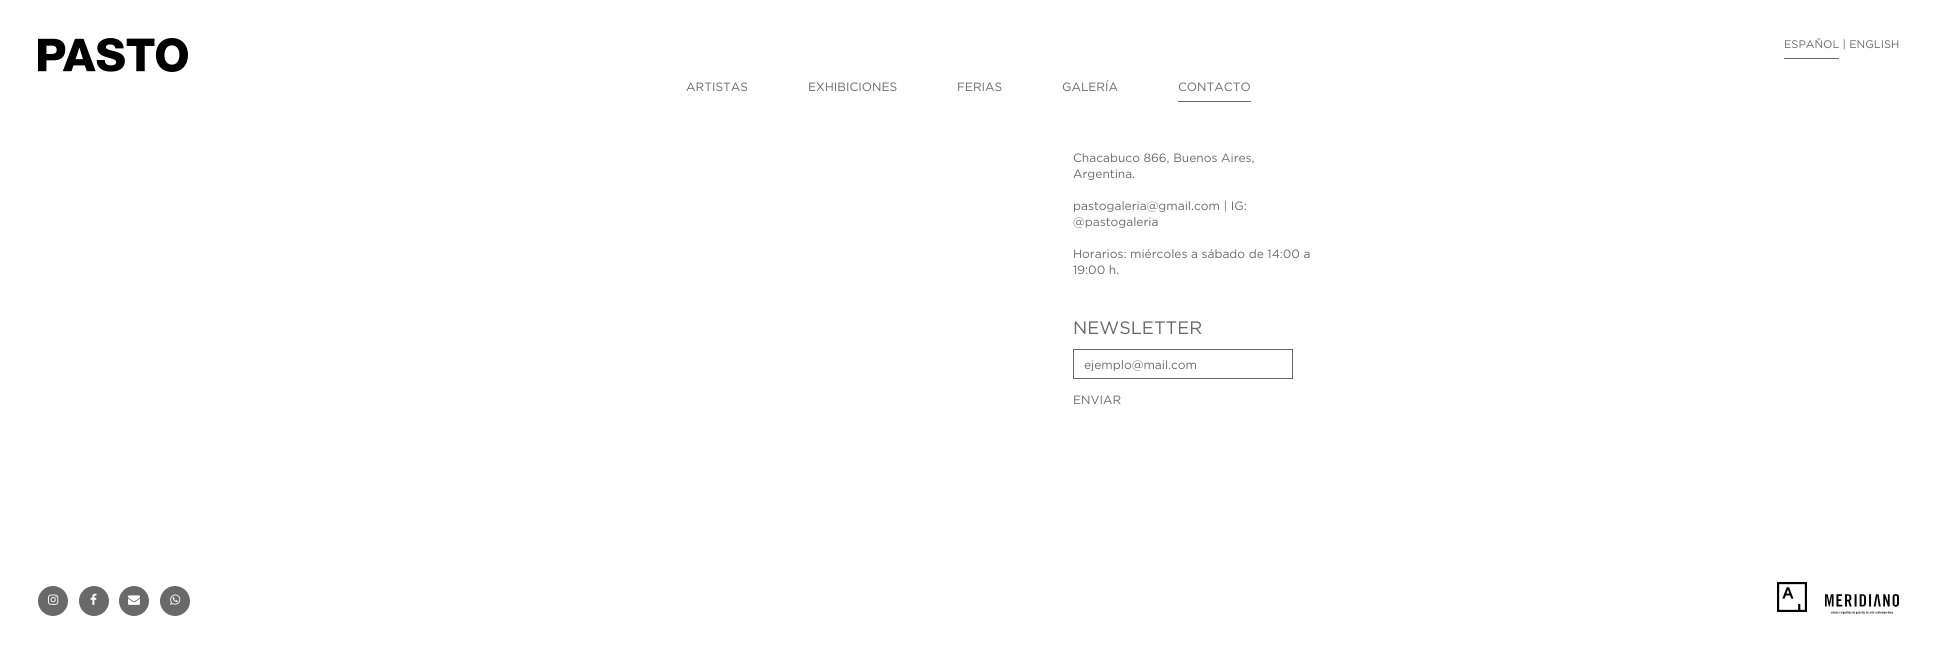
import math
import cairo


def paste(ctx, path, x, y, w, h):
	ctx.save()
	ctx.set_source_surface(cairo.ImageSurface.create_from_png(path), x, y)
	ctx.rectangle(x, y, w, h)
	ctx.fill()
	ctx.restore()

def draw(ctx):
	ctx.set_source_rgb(1, 1, 1)
	ctx.paint()
	ctx.select_font_face('Gotham')
	ctx.set_font_size(11)
	ctx.set_source_rgb(0.412, 0.412, 0.412)
	ctx.move_to(1784, 48)
	ctx.show_text('ESPAÑOL | ENGLISH')
	ctx.rectangle(1784, 58, 55, 1)
	ctx.fill()
	paste(ctx, 'media/1.png', 38, 38, 150, 34)
	ctx.set_font_size(12)
	for x, y, s in [
		(686, 91, 'ARTISTAS'),
		(808, 91, 'EXHIBICIONES'),
		(957, 91, 'FERIAS'),
		(1062, 91, 'GALERÍA'),
		(1178, 91, 'CONTACTO'),
	]:
		ctx.move_to(x, y)
		ctx.show_text(s)
	ctx.rectangle(1178, 101, 73, 1)
	ctx.fill()
	for x, y, s in [
		(1073, 162, 'Chacabuco 866, Buenos Aires,'),
		(1073, 178, 'Argentina.'),
		(1073, 210, 'pastogaleria@gmail.com | IG:'),
		(1073, 226, '@pastogaleria'),
		(1073, 258, 'Horarios: miércoles a sábado de 14:00 a'),
		(1073, 274, '19:00 h.'),
	]:
		ctx.move_to(x, y)
		ctx.show_text(s)
	ctx.set_font_size(18)
	ctx.move_to(1073, 334)
	ctx.show_text('NEWSLETTER')
	ctx.rectangle(1073.5, 349.5, 219, 29)
	ctx.set_line_width(1)
	ctx.stroke()
	ctx.set_font_size(12)
	ctx.move_to(1084, 369)
	ctx.show_text('ejemplo@mail.com')
	ctx.move_to(1073, 404)
	ctx.show_text('ENVIAR')
	ctx.new_path()
	ctx.arc(53, 601, 15, 0, 2 * math.pi)
	ctx.fill()
	paste(ctx, 'media/2.png', 48, 594, 11, 11)
	ctx.arc(94, 601, 15, 0, 2 * math.pi)
	ctx.fill()
	paste(ctx, 'media/3.png', 90, 593, 7, 12)
	ctx.arc(134, 601, 15, 0, 2 * math.pi)
	ctx.fill()
	paste(ctx, 'media/4.png', 128, 595, 12, 10)
	ctx.arc(175, 601, 15, 0, 2 * math.pi)
	ctx.fill()
	paste(ctx, 'media/5.png', 170, 594, 11, 11)
	paste(ctx, 'media/6.png', 1777, 582, 30, 30)
	paste(ctx, 'media/7.png', 1825, 594, 74, 20)


surface = cairo.ImageSurface(cairo.FORMAT_RGB24, 1937, 654)
ctx = cairo.Context(surface)
options = cairo.FontOptions()
options.set_hint_metrics(cairo.HINT_METRICS_OFF)
options.set_hint_style(cairo.HINT_STYLE_NONE)
ctx.set_font_options(options)
ctx.set_miter_limit(4)
draw(ctx)
surface.write_to_png('image.png')
